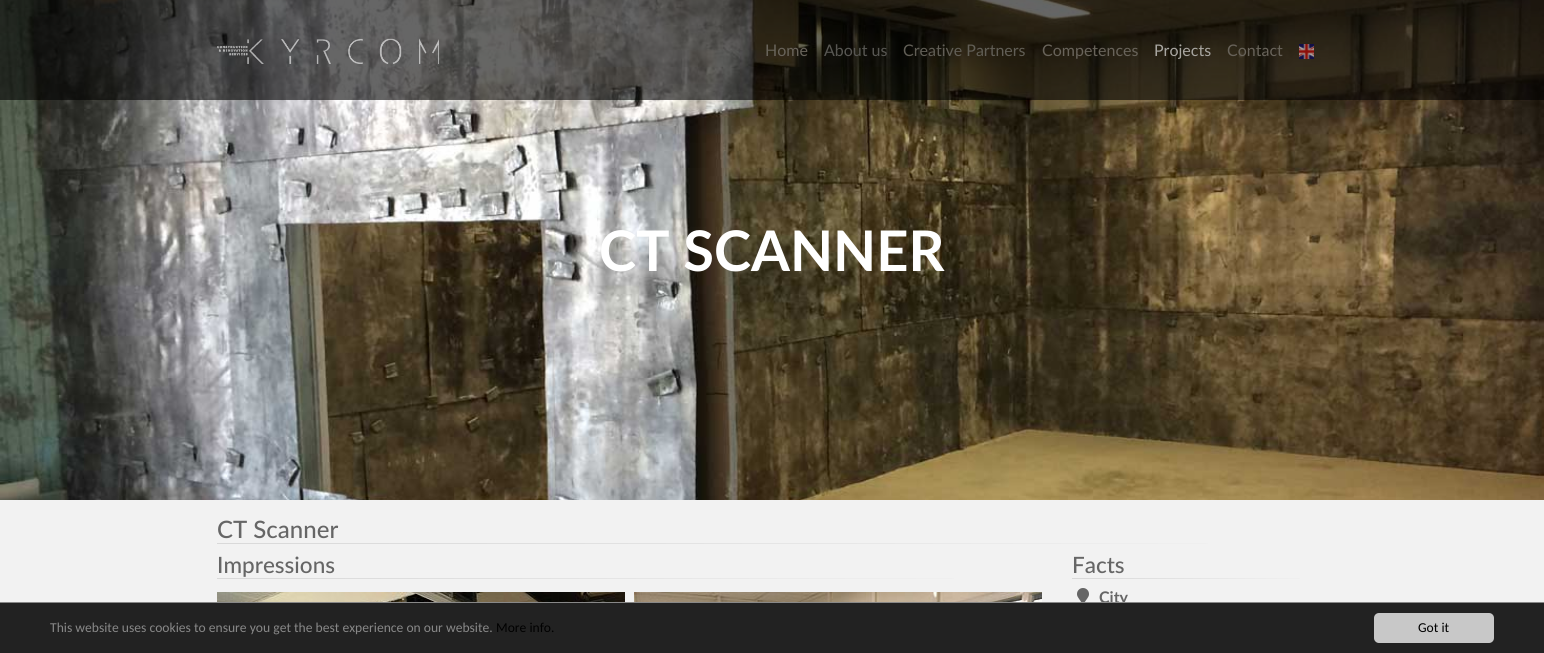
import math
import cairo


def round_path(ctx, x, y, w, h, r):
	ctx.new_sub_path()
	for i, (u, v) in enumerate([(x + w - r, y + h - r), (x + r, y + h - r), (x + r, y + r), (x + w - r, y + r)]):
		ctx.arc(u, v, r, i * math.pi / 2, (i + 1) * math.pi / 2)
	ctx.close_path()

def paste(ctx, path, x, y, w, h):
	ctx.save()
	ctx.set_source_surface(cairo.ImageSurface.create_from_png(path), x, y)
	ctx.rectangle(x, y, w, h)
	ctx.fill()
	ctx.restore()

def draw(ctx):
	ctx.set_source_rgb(0.949, 0.949, 0.949)
	ctx.paint()
	paste(ctx, 'media/3.png', 0, 0, 1544, 500)
	ctx.set_source_rgba(0, 0, 0, 0.6)
	ctx.rectangle(0, 0, 1544, 100)
	ctx.fill()
	paste(ctx, 'media/1.png', 217, 38, 222, 26)
	ctx.select_font_face('Lato')
	ctx.set_font_size(16)
	ctx.set_source_rgb(0.408, 0.388, 0.353)
	ctx.move_to(765, 56)
	ctx.show_text('Home')
	ctx.set_source_rgb(0.345, 0.341, 0.325)
	ctx.move_to(824, 56)
	ctx.show_text('About us')
	ctx.set_source_rgb(0.38, 0.369, 0.337)
	ctx.move_to(903, 56)
	ctx.show_text('Creative Partners')
	ctx.set_source_rgb(0.408, 0.388, 0.353)
	ctx.move_to(1042, 56)
	ctx.show_text('Competences')
	ctx.set_source_rgb(0.659, 0.651, 0.631)
	ctx.move_to(1154, 56)
	ctx.show_text('Projects')
	ctx.set_source_rgb(0.408, 0.388, 0.353)
	ctx.move_to(1227, 56)
	ctx.show_text('Contact')
	paste(ctx, 'media/2.png', 1299, 44, 15, 15)
	ctx.select_font_face('Lato', cairo.FONT_SLANT_NORMAL, cairo.FONT_WEIGHT_BOLD)
	ctx.set_font_size(56)
	ctx.set_source_rgb(1, 1, 1)
	ctx.move_to(599, 271)
	ctx.show_text('CT SCANNER')
	gradient = cairo.LinearGradient(217, 544, 1327, 544)
	gradient.add_color_stop_rgba(0, 0.851, 0.851, 0.851, 1)
	gradient.add_color_stop_rgba(0.35, 0.882, 0.882, 0.882, 1)
	gradient.add_color_stop_rgba(0.7, 0.922, 0.922, 0.922, 1)
	gradient.add_color_stop_rgba(1, 0.949, 0.949, 0.949, 1)
	ctx.set_source(gradient)
	ctx.rectangle(217, 543, 991, 1)
	ctx.fill()
	ctx.select_font_face('Lato Medium')
	ctx.set_font_size(24)
	ctx.set_source_rgb(0.4, 0.4, 0.4)
	ctx.move_to(217, 538)
	ctx.show_text('CT Scanner')
	gradient = cairo.LinearGradient(217, 579, 1042, 579)
	gradient.add_color_stop_rgba(0, 0.851, 0.851, 0.851, 1)
	gradient.add_color_stop_rgba(0.35, 0.882, 0.882, 0.882, 1)
	gradient.add_color_stop_rgba(0.7, 0.922, 0.922, 0.922, 1)
	gradient.add_color_stop_rgba(1, 0.949, 0.949, 0.949, 1)
	ctx.set_source(gradient)
	ctx.rectangle(217, 578, 737, 1)
	ctx.fill()
	ctx.set_font_size(22.5)
	ctx.set_source_rgb(0.4, 0.4, 0.4)
	ctx.move_to(217, 573)
	ctx.show_text('Impressions')
	paste(ctx, 'media/4.png', 217, 592, 408, 10)
	paste(ctx, 'media/5.png', 634, 592, 408, 10)
	gradient = cairo.LinearGradient(1072, 579, 1327, 579)
	gradient.add_color_stop_rgba(0, 0.851, 0.851, 0.851, 1)
	gradient.add_color_stop_rgba(0.35, 0.882, 0.882, 0.882, 1)
	gradient.add_color_stop_rgba(0.7, 0.922, 0.922, 0.922, 1)
	gradient.add_color_stop_rgba(1, 0.949, 0.949, 0.949, 1)
	ctx.set_source(gradient)
	ctx.rectangle(1072, 578, 228, 1)
	ctx.fill()
	ctx.set_source_rgb(0.4, 0.4, 0.4)
	ctx.move_to(1072, 573)
	ctx.show_text('Facts')
	paste(ctx, 'media/6.png', 1077, 588, 12, 14)
	ctx.select_font_face('Lato', cairo.FONT_SLANT_NORMAL, cairo.FONT_WEIGHT_BOLD)
	ctx.set_font_size(16)
	ctx.move_to(1099, 603)
	ctx.show_text('City')
	ctx.set_source_rgb(0.133, 0.133, 0.133)
	ctx.rectangle(0, 603, 1544, 50)
	ctx.fill()
	ctx.set_source_rgb(0.533, 0.533, 0.533)
	ctx.rectangle(0, 602, 1544, 1)
	ctx.fill()
	ctx.select_font_face('Carlito')
	ctx.set_font_size(13.6)
	ctx.move_to(50, 632)
	ctx.show_text('This website uses cookies to ensure you get the best experience on our website.')
	ctx.set_source_rgb(0, 0, 0)
	ctx.move_to(496, 632)
	ctx.show_text('More info.')
	ctx.set_source_rgb(0.784, 0.784, 0.784)
	round_path(ctx, 1374, 613, 120, 30, 5)
	ctx.fill()
	ctx.set_source_rgb(0, 0, 0)
	ctx.move_to(1418, 632)
	ctx.show_text('Got it')


surface = cairo.ImageSurface(cairo.FORMAT_RGB24, 1544, 653)
ctx = cairo.Context(surface)
options = cairo.FontOptions()
options.set_hint_metrics(cairo.HINT_METRICS_OFF)
options.set_hint_style(cairo.HINT_STYLE_NONE)
ctx.set_font_options(options)
ctx.set_miter_limit(4)
draw(ctx)
surface.write_to_png('image.png')
